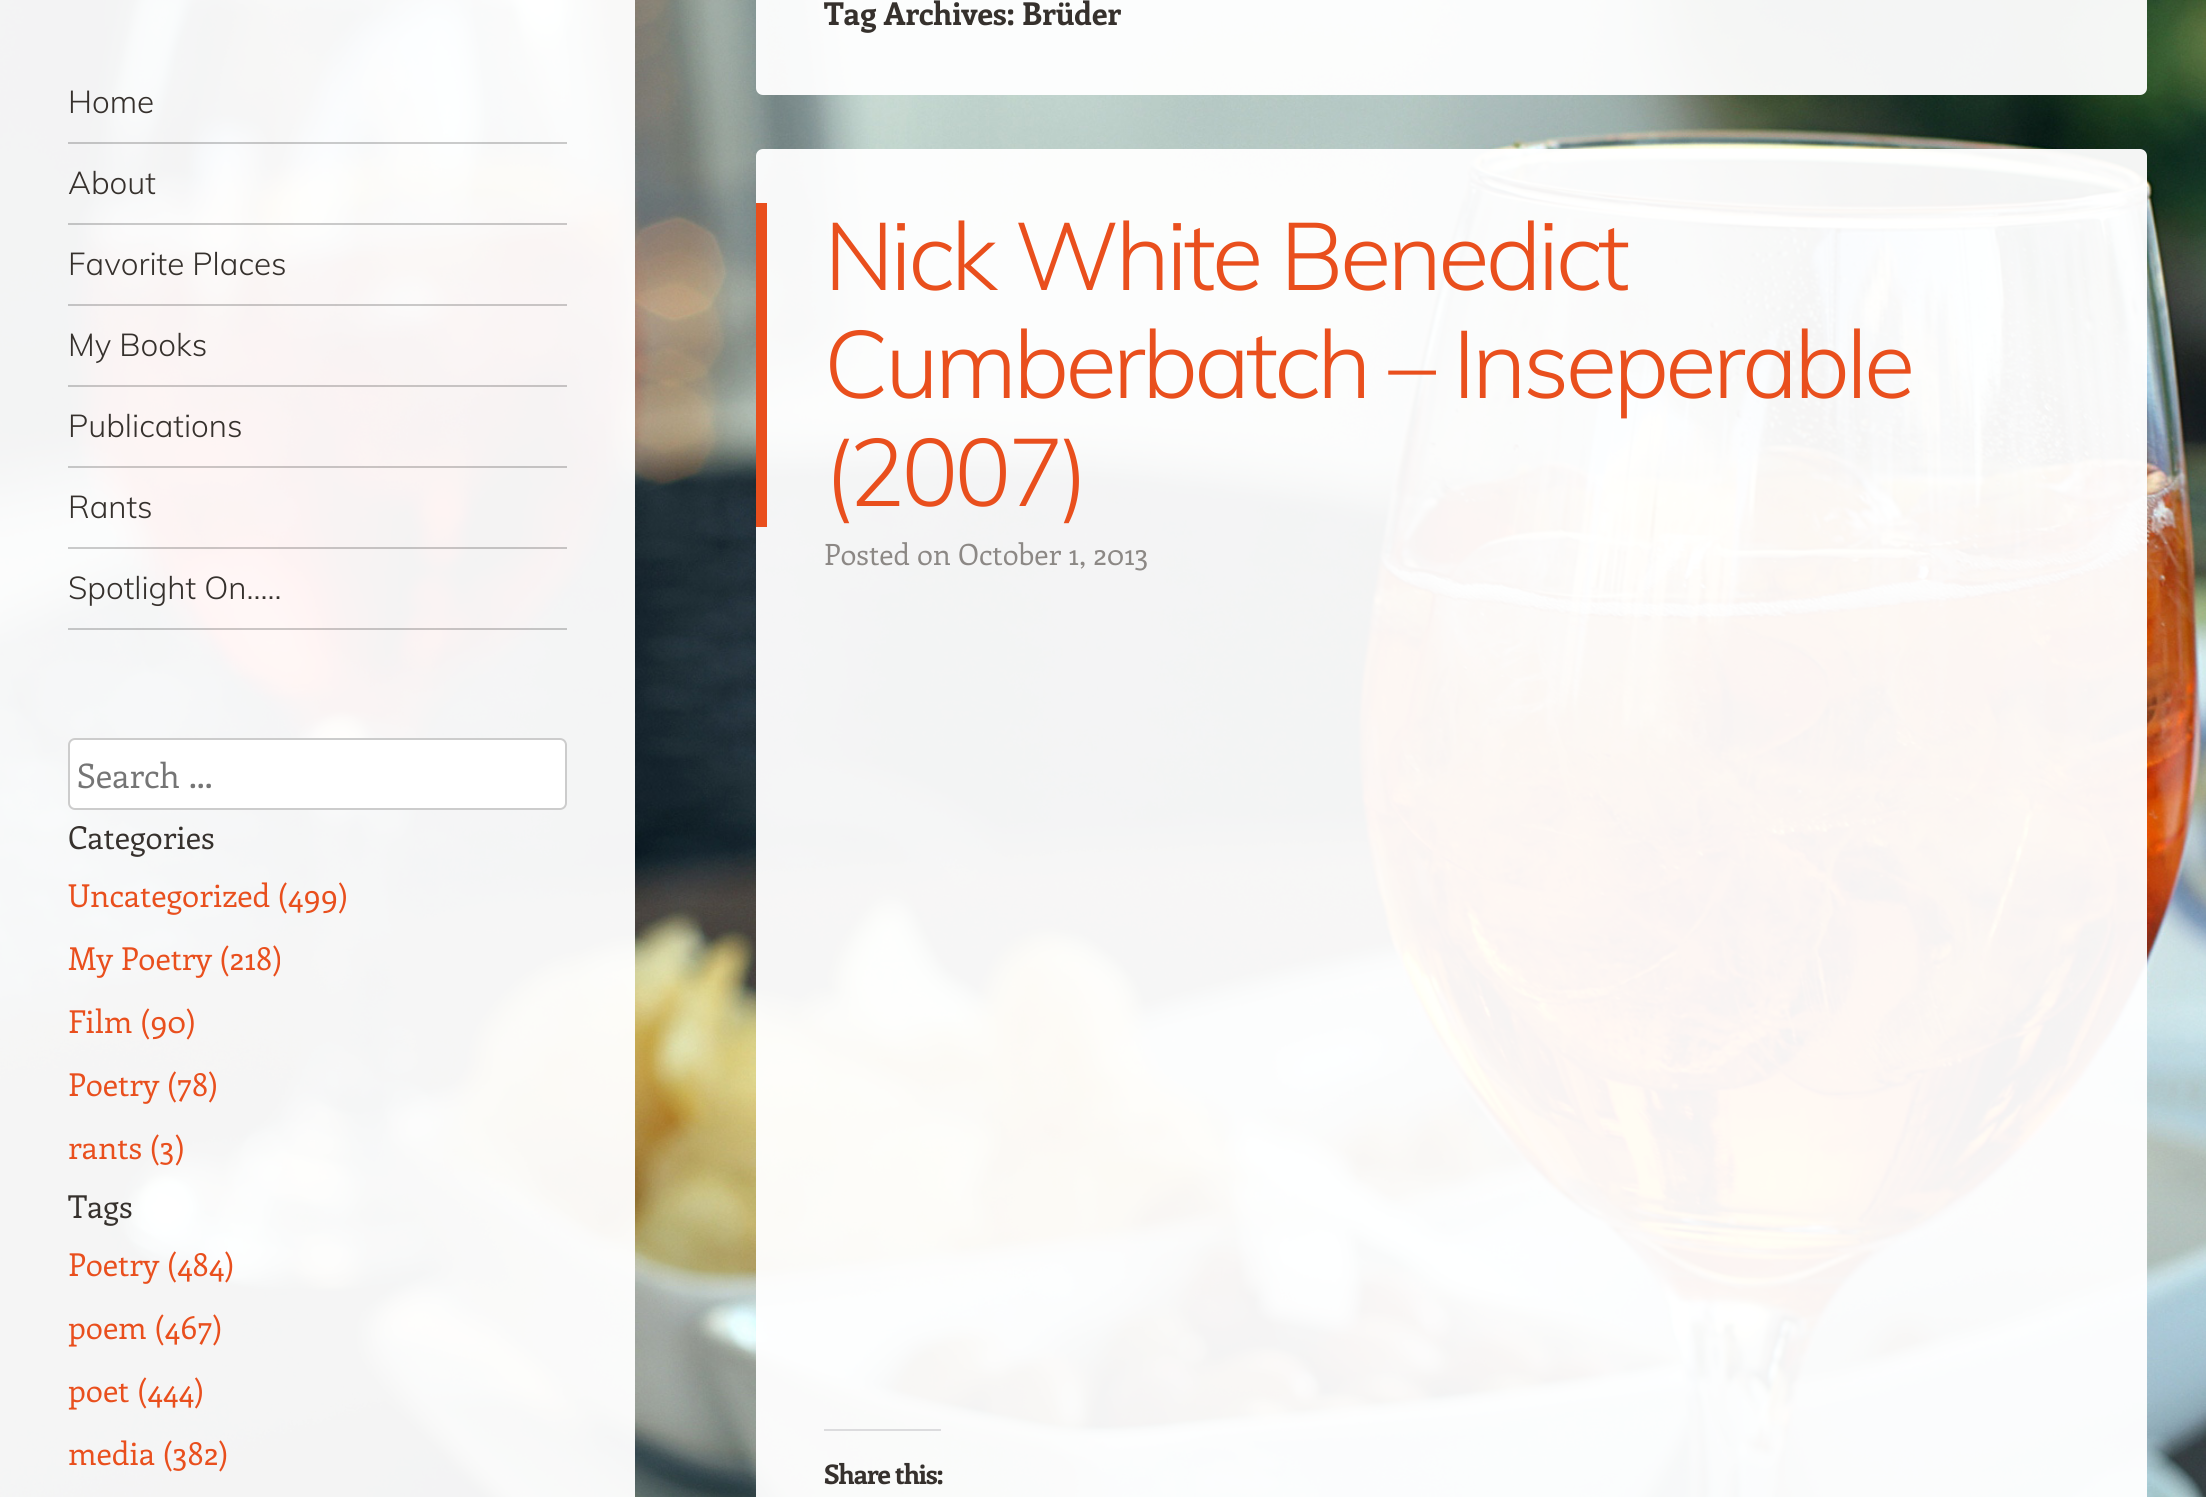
import math
import cairo


def write_spaced(ctx, x, y, s, letter, word):
	ctx.move_to(x, y)
	for ch in s:
		ctx.show_text(ch)
		ctx.rel_move_to(letter + word * (ch == ' '), 0)

def round_path(ctx, x, y, w, h, r):
	ctx.new_sub_path()
	for i, (u, v) in enumerate([(x + w - r, y + h - r), (x + r, y + h - r), (x + r, y + r), (x + w - r, y + r)]):
		ctx.arc(u, v, r, i * math.pi / 2, (i + 1) * math.pi / 2)
	ctx.close_path()

def paste(ctx, path, x, y, w, h):
	ctx.save()
	ctx.set_source_surface(cairo.ImageSurface.create_from_png(path), x, y)
	ctx.rectangle(x, y, w, h)
	ctx.fill()
	ctx.restore()

def draw(ctx):
	ctx.set_source_rgb(1, 1, 1)
	ctx.paint()
	paste(ctx, 'media/1.png', 0, 0, 2206, 1497)
	ctx.set_source_rgba(1, 1, 1, 0.95)
	ctx.rectangle(0, 0, 635, 1497)
	ctx.fill()
	round_path(ctx, 756, -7, 1391, 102, 7)
	ctx.fill()
	ctx.select_font_face('Enriqueta', cairo.FONT_SLANT_NORMAL, cairo.FONT_WEIGHT_BOLD)
	ctx.set_font_size(31.5)
	ctx.set_source_rgb(0.212, 0.192, 0.176)
	ctx.move_to(824, 25)
	ctx.show_text('Tag Archives: Brüder')
	ctx.set_source_rgba(1, 1, 1, 0.95)
	round_path(ctx, 756, 149, 1391, 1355, 7)
	ctx.fill()
	ctx.set_source_rgb(0.914, 0.31, 0.114)
	ctx.rectangle(756, 203, 11, 324)
	ctx.fill()
	ctx.select_font_face('Muli Light')
	ctx.set_font_size(94.5)
	for x, y, s in [
		(824, 290, 'Nick White Benedict'),
		(824, 398, 'Cumberbatch – Inseperable'),
		(824, 506, '(2007)'),
	]:
		write_spaced(ctx, x, y, s, -3.75, 0)
	ctx.select_font_face('Enriqueta')
	ctx.set_font_size(29.25)
	ctx.set_source_rgb(0.549, 0.533, 0.522)
	ctx.move_to(824, 565)
	ctx.show_text('Posted on October 1, 2013')
	ctx.set_source_rgb(0.863, 0.863, 0.871)
	ctx.rectangle(824, 1429, 117, 2)
	ctx.fill()
	ctx.select_font_face('Enriqueta', cairo.FONT_SLANT_NORMAL, cairo.FONT_WEIGHT_BOLD)
	ctx.set_font_size(27)
	ctx.set_source_rgb(0.212, 0.192, 0.176)
	write_spaced(ctx, 824, 1484, 'Share this:', -1, 0)
	ctx.set_source_rgba(0, 0, 0, 0.2)
	ctx.rectangle(68, 142, 499, 2)
	ctx.fill()
	ctx.select_font_face('Muli Light')
	ctx.set_font_size(31.5)
	ctx.set_source_rgb(0.212, 0.192, 0.176)
	ctx.move_to(68, 113)
	ctx.show_text('Home')
	ctx.set_source_rgba(0, 0, 0, 0.2)
	ctx.rectangle(68, 223, 499, 2)
	ctx.fill()
	ctx.set_source_rgb(0.212, 0.192, 0.176)
	ctx.move_to(68, 194)
	ctx.show_text('About')
	ctx.set_source_rgba(0, 0, 0, 0.2)
	ctx.rectangle(68, 304, 499, 2)
	ctx.fill()
	ctx.set_source_rgb(0.212, 0.192, 0.176)
	ctx.move_to(68, 275)
	ctx.show_text('Favorite Places')
	ctx.set_source_rgba(0, 0, 0, 0.2)
	ctx.rectangle(68, 385, 499, 2)
	ctx.fill()
	ctx.set_source_rgb(0.212, 0.192, 0.176)
	ctx.move_to(68, 356)
	ctx.show_text('My Books')
	ctx.set_source_rgba(0, 0, 0, 0.2)
	ctx.rectangle(68, 466, 499, 2)
	ctx.fill()
	ctx.set_source_rgb(0.212, 0.192, 0.176)
	ctx.move_to(68, 437)
	ctx.show_text('Publications')
	ctx.set_source_rgba(0, 0, 0, 0.2)
	ctx.rectangle(68, 547, 499, 2)
	ctx.fill()
	ctx.set_source_rgb(0.212, 0.192, 0.176)
	ctx.move_to(68, 518)
	ctx.show_text('Rants')
	ctx.set_source_rgba(0, 0, 0, 0.2)
	ctx.rectangle(68, 628, 499, 2)
	ctx.fill()
	ctx.set_source_rgb(0.212, 0.192, 0.176)
	ctx.move_to(68, 599)
	ctx.show_text('Spotlight On…..')
	ctx.set_source_rgb(1, 1, 1)
	round_path(ctx, 68, 738, 499, 72, 7)
	ctx.fill()
	round_path(ctx, 69, 739, 497, 70, 6)
	ctx.set_source_rgba(0, 0, 0, 0.2)
	ctx.stroke()
	ctx.select_font_face('Enriqueta')
	ctx.set_font_size(33.75)
	ctx.set_source_rgb(0.459, 0.459, 0.459)
	ctx.move_to(77, 788)
	ctx.show_text('Search …')
	ctx.set_font_size(31.5)
	ctx.set_source_rgb(0.212, 0.192, 0.176)
	ctx.move_to(68, 849)
	ctx.show_text('Categories')
	ctx.set_source_rgb(0.914, 0.31, 0.114)
	for x, y, s in [
		(68, 907, 'Uncategorized (499)'),
		(68, 970, 'My Poetry (218)'),
		(68, 1033, 'Film (90)'),
		(68, 1096, 'Poetry (78)'),
		(68, 1159, 'rants (3)'),
	]:
		ctx.move_to(x, y)
		ctx.show_text(s)
	ctx.save()
	ctx.rectangle(68, 738, 499, 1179)
	ctx.clip()
	ctx.set_source_rgb(0.212, 0.192, 0.176)
	ctx.move_to(68, 1218)
	ctx.show_text('Tags')
	ctx.restore()
	for x, y, s in [
		(68, 1276, 'Poetry (484)'),
		(68, 1339, 'poem (467)'),
		(68, 1402, 'poet (444)'),
		(68, 1465, 'media (382)'),
	]:
		ctx.move_to(x, y)
		ctx.show_text(s)


surface = cairo.ImageSurface(cairo.FORMAT_RGB24, 2206, 1497)
ctx = cairo.Context(surface)
options = cairo.FontOptions()
options.set_hint_metrics(cairo.HINT_METRICS_OFF)
options.set_hint_style(cairo.HINT_STYLE_NONE)
ctx.set_font_options(options)
ctx.set_miter_limit(4)
draw(ctx)
surface.write_to_png('image.png')
